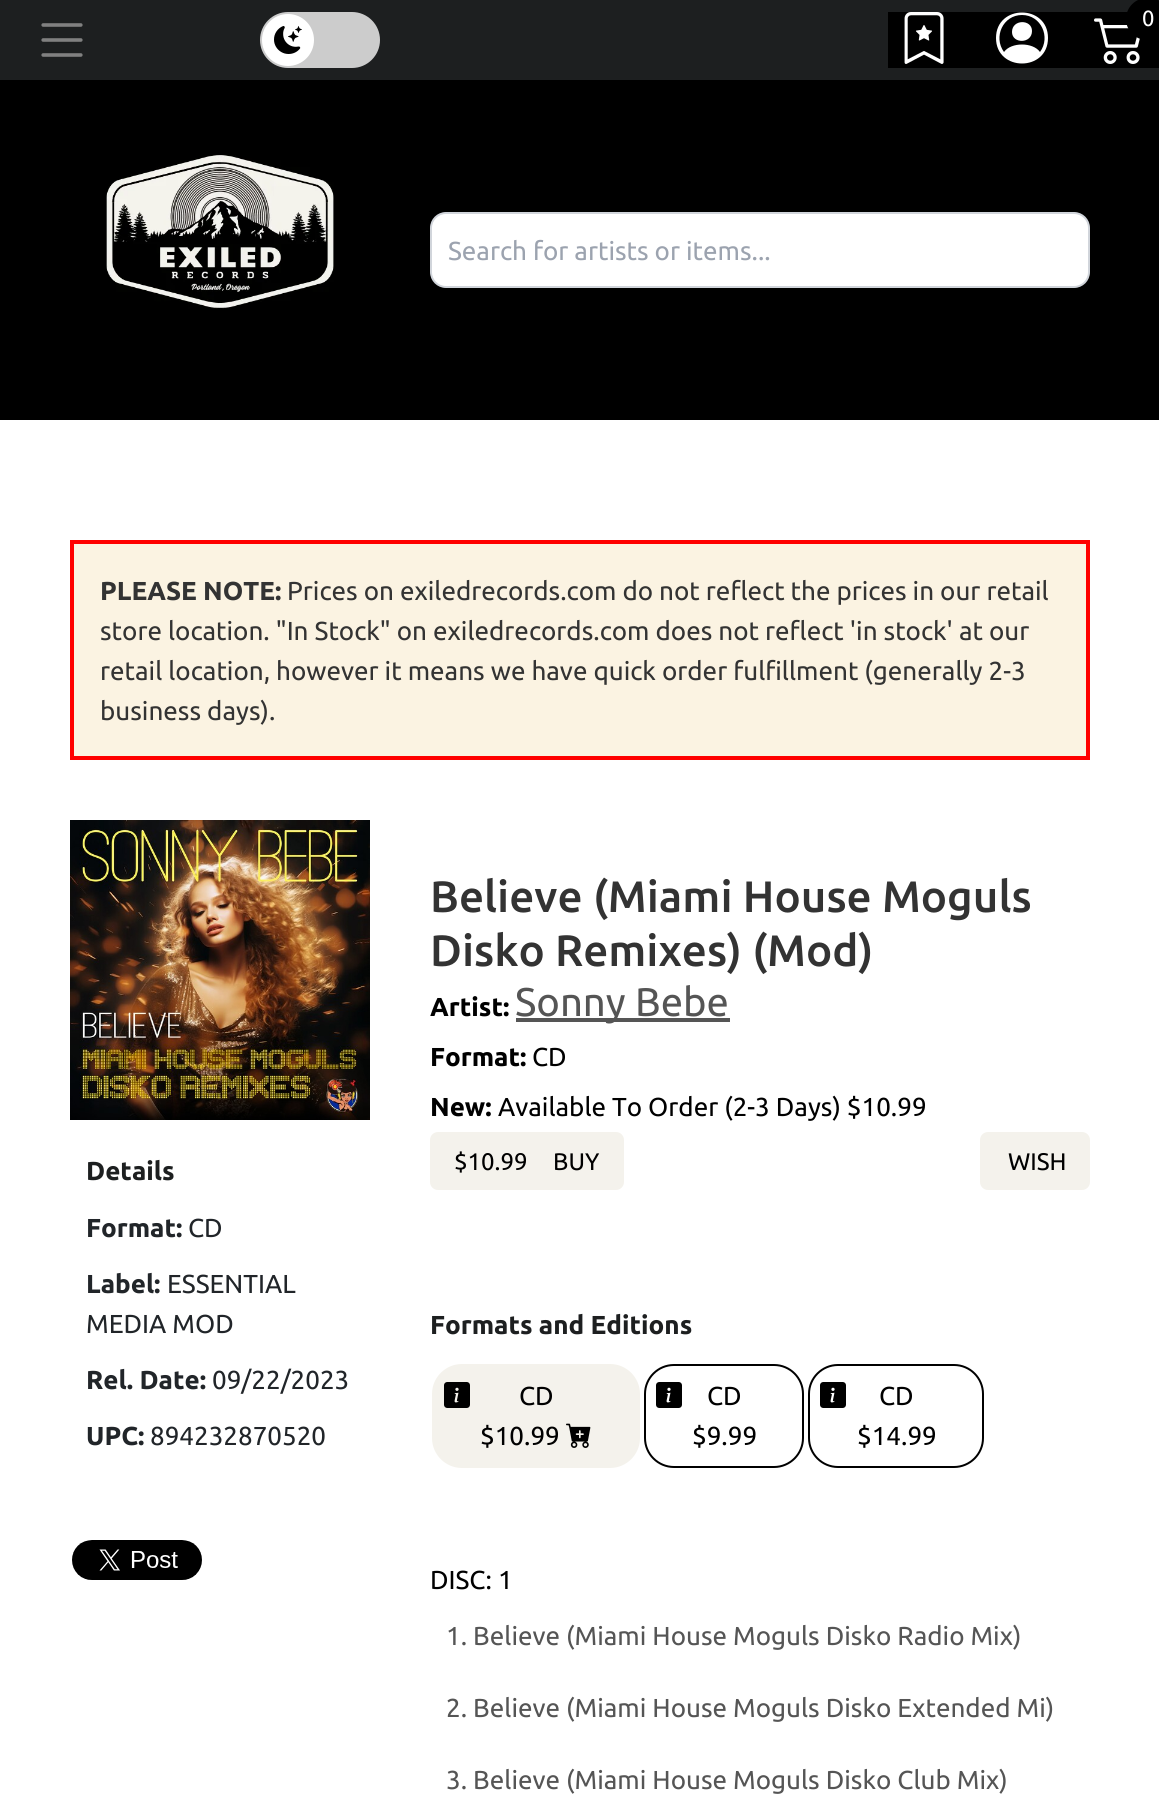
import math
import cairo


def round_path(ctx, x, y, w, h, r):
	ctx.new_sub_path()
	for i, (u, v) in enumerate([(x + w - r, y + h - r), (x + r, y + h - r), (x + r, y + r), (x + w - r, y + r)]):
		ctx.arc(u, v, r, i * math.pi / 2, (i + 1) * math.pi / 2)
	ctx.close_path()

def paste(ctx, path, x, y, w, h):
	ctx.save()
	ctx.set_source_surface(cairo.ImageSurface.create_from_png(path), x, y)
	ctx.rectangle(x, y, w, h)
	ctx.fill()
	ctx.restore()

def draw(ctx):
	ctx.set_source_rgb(1, 1, 1)
	ctx.paint()
	ctx.set_source_rgb(0.114, 0.122, 0.125)
	ctx.rectangle(0, 0, 1159, 80)
	ctx.fill()
	paste(ctx, 'media/1.png', 41, 23, 42, 34)
	ctx.set_source_rgb(0.8, 0.8, 0.8)
	round_path(ctx, 260, 12, 120, 56, 28)
	ctx.fill()
	ctx.set_source_rgb(1, 1, 1)
	ctx.arc(288, 40, 26, 0, 2 * math.pi)
	ctx.fill()
	paste(ctx, 'media/2.png', 274, 26, 28, 28)
	ctx.set_source_rgb(0, 0, 0)
	ctx.rectangle(888, 12, 271, 56)
	ctx.fill()
	paste(ctx, 'media/3.png', 904, 12, 40, 52)
	ctx.set_source_rgb(1, 1, 1)
	ctx.new_path()
	ctx.move_to(1032, 31)
	ctx.curve_to(1032, 44, 1012, 44, 1012, 32)
	ctx.curve_to(1012, 19, 1032, 19, 1032, 31)
	ctx.close_path()
	ctx.move_to(996, 38)
	ctx.curve_to(996, 4, 1048, 4, 1048, 38)
	ctx.curve_to(1048, 72, 996, 72, 996, 38)
	ctx.close_path()
	ctx.move_to(1022, 15)
	ctx.curve_to(1003, 15, 993, 37, 1004, 52)
	ctx.curve_to(1011, 42, 1033, 42, 1040, 52)
	ctx.curve_to(1051, 37, 1041, 15, 1022, 15)
	ctx.close_path()
	ctx.fill()
	paste(ctx, 'media/4.png', 1094, 18, 46, 46)
	ctx.set_source_rgb(0, 0, 0)
	round_path(ctx, 1126, -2, 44, 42, 21)
	ctx.fill()
	ctx.select_font_face('Ubuntu')
	ctx.set_font_size(22)
	ctx.set_source_rgb(1, 1, 1)
	ctx.move_to(1142, 26)
	ctx.show_text('0')
	ctx.set_source_rgb(0, 0, 0)
	ctx.rectangle(0, 80, 1159, 340)
	ctx.fill()
	paste(ctx, 'media/5.png', 106, 155, 228, 154)
	ctx.set_source_rgb(1, 1, 1)
	round_path(ctx, 431, 213, 658, 74, 15)
	ctx.fill_preserve()
	ctx.set_source_rgb(0.82, 0.835, 0.859)
	ctx.stroke()
	ctx.set_font_size(26)
	ctx.set_source_rgb(0.612, 0.639, 0.686)
	ctx.move_to(448, 260)
	ctx.show_text('Search for artists or items...')
	ctx.set_source_rgb(0.984, 0.953, 0.886)
	ctx.rectangle(72, 542, 1016, 216)
	ctx.fill_preserve()
	ctx.set_source_rgb(1, 0, 0)
	ctx.set_line_width(4)
	ctx.stroke()
	ctx.select_font_face('Ubuntu', cairo.FONT_SLANT_NORMAL, cairo.FONT_WEIGHT_BOLD)
	ctx.set_source_rgb(0.2, 0.2, 0.2)
	ctx.move_to(100, 600)
	ctx.show_text('PLEASE NOTE:')
	ctx.select_font_face('Ubuntu')
	for x, y, s in [
		(287, 600, 'Prices on exiledrecords.com do not reflect the prices in our retail'),
		(100, 640, 'store location. "In Stock" on exiledrecords.com does not reflect \'in stock\' at our'),
		(100, 680, 'retail location, however it means we have quick order fulfillment (generally 2-3'),
		(100, 720, 'business days).'),
	]:
		ctx.move_to(x, y)
		ctx.show_text(s)
	paste(ctx, 'media/6.png', 70, 820, 300, 300)
	ctx.select_font_face('Ubuntu', cairo.FONT_SLANT_NORMAL, cairo.FONT_WEIGHT_BOLD)
	ctx.set_source_rgb(0.114, 0.122, 0.125)
	ctx.move_to(86, 1180)
	ctx.show_text('Details')
	ctx.set_source_rgb(0.129, 0.145, 0.161)
	ctx.move_to(86, 1237)
	ctx.show_text('Format:')
	ctx.select_font_face('Ubuntu')
	ctx.move_to(188, 1237)
	ctx.show_text('CD')
	ctx.select_font_face('Ubuntu', cairo.FONT_SLANT_NORMAL, cairo.FONT_WEIGHT_BOLD)
	ctx.move_to(86, 1293)
	ctx.show_text('Label:')
	ctx.select_font_face('Ubuntu')
	ctx.move_to(167, 1293)
	ctx.show_text('ESSENTIAL')
	ctx.move_to(86, 1333)
	ctx.show_text('MEDIA MOD')
	ctx.select_font_face('Ubuntu', cairo.FONT_SLANT_NORMAL, cairo.FONT_WEIGHT_BOLD)
	ctx.move_to(86, 1389)
	ctx.show_text('Rel. Date:')
	ctx.select_font_face('Ubuntu')
	ctx.move_to(212, 1389)
	ctx.show_text('09/22/2023')
	ctx.select_font_face('Ubuntu', cairo.FONT_SLANT_NORMAL, cairo.FONT_WEIGHT_BOLD)
	ctx.move_to(86, 1445)
	ctx.show_text('UPC:')
	ctx.select_font_face('Ubuntu')
	ctx.move_to(150, 1445)
	ctx.show_text('894232870520')
	paste(ctx, 'media/7.png', 72, 1540, 130, 40)
	ctx.select_font_face('Ubuntu Medium')
	ctx.set_font_size(44)
	ctx.set_source_rgb(0.2, 0.2, 0.2)
	ctx.move_to(430, 912)
	ctx.show_text('Believe (Miami House Moguls')
	ctx.move_to(430, 966)
	ctx.show_text('Disko Remixes) (Mod)')
	ctx.select_font_face('Ubuntu', cairo.FONT_SLANT_NORMAL, cairo.FONT_WEIGHT_BOLD)
	ctx.set_font_size(26)
	ctx.set_source_rgb(0, 0, 0)
	ctx.move_to(430, 1016)
	ctx.show_text('Artist:')
	ctx.set_source_rgb(0.333, 0.333, 0.333)
	ctx.rectangle(516, 1018, 214, 4)
	ctx.fill()
	ctx.select_font_face('Ubuntu')
	ctx.set_font_size(40)
	ctx.move_to(515, 1016)
	ctx.show_text('Sonny Bebe')
	ctx.select_font_face('Ubuntu', cairo.FONT_SLANT_NORMAL, cairo.FONT_WEIGHT_BOLD)
	ctx.set_font_size(26)
	ctx.set_source_rgb(0, 0, 0)
	ctx.move_to(430, 1066)
	ctx.show_text('Format:')
	ctx.select_font_face('Ubuntu')
	ctx.move_to(532, 1066)
	ctx.show_text('CD')
	ctx.select_font_face('Ubuntu', cairo.FONT_SLANT_NORMAL, cairo.FONT_WEIGHT_BOLD)
	ctx.move_to(430, 1116)
	ctx.show_text('New:')
	ctx.select_font_face('Ubuntu')
	ctx.move_to(498, 1116)
	ctx.show_text('Available To Order (2-3 Days) $10.99')
	ctx.set_source_rgb(0.957, 0.949, 0.925)
	round_path(ctx, 430, 1132, 194, 58, 8)
	ctx.fill()
	ctx.set_font_size(24)
	ctx.set_source_rgb(0, 0, 0)
	ctx.move_to(454, 1170)
	ctx.show_text('$10.99')
	ctx.move_to(553, 1170)
	ctx.show_text('BUY')
	ctx.set_source_rgb(0.957, 0.949, 0.925)
	round_path(ctx, 980, 1132, 110, 58, 8)
	ctx.fill()
	ctx.set_source_rgb(0, 0, 0)
	ctx.move_to(1008, 1170)
	ctx.show_text('WISH')
	ctx.select_font_face('Ubuntu', cairo.FONT_SLANT_NORMAL, cairo.FONT_WEIGHT_BOLD)
	ctx.set_font_size(26)
	ctx.set_source_rgb(0.114, 0.122, 0.125)
	ctx.move_to(430, 1334)
	ctx.show_text('Formats and Editions')
	ctx.set_source_rgb(0.957, 0.949, 0.925)
	round_path(ctx, 433, 1365, 206, 102, 29)
	ctx.fill_preserve()
	ctx.set_line_width(2)
	ctx.stroke()
	paste(ctx, 'media/8.png', 444, 1382, 26, 26)
	ctx.select_font_face('Ubuntu')
	ctx.set_source_rgb(0, 0, 0)
	ctx.move_to(519, 1405)
	ctx.show_text('CD')
	ctx.move_to(480, 1445)
	ctx.show_text('$10.99')
	paste(ctx, 'media/9.png', 566, 1423, 25, 25)
	round_path(ctx, 645, 1365, 158, 102, 29)
	ctx.stroke()
	paste(ctx, 'media/10.png', 656, 1382, 26, 26)
	ctx.move_to(707, 1405)
	ctx.show_text('CD')
	ctx.move_to(692, 1445)
	ctx.show_text('$9.99')
	round_path(ctx, 809, 1365, 174, 102, 29)
	ctx.stroke()
	paste(ctx, 'media/10.png', 820, 1382, 26, 26)
	for x, y, s in [
		(879, 1405, 'CD'),
		(857, 1445, '$14.99'),
		(430, 1589, 'DISC: 1'),
	]:
		ctx.move_to(x, y)
		ctx.show_text(s)
	ctx.set_source_rgb(0.333, 0.333, 0.333)
	for x, y, s in [
		(446, 1645, '1. Believe (Miami House Moguls Disko Radio Mix)'),
		(446, 1717, '2. Believe (Miami House Moguls Disko Extended Mi)'),
		(446, 1789, '3. Believe (Miami House Moguls Disko Club Mix)'),
	]:
		ctx.move_to(x, y)
		ctx.show_text(s)


surface = cairo.ImageSurface(cairo.FORMAT_RGB24, 1159, 1795)
ctx = cairo.Context(surface)
options = cairo.FontOptions()
options.set_hint_metrics(cairo.HINT_METRICS_OFF)
options.set_hint_style(cairo.HINT_STYLE_NONE)
ctx.set_font_options(options)
ctx.set_miter_limit(4)
draw(ctx)
surface.write_to_png('image.png')
